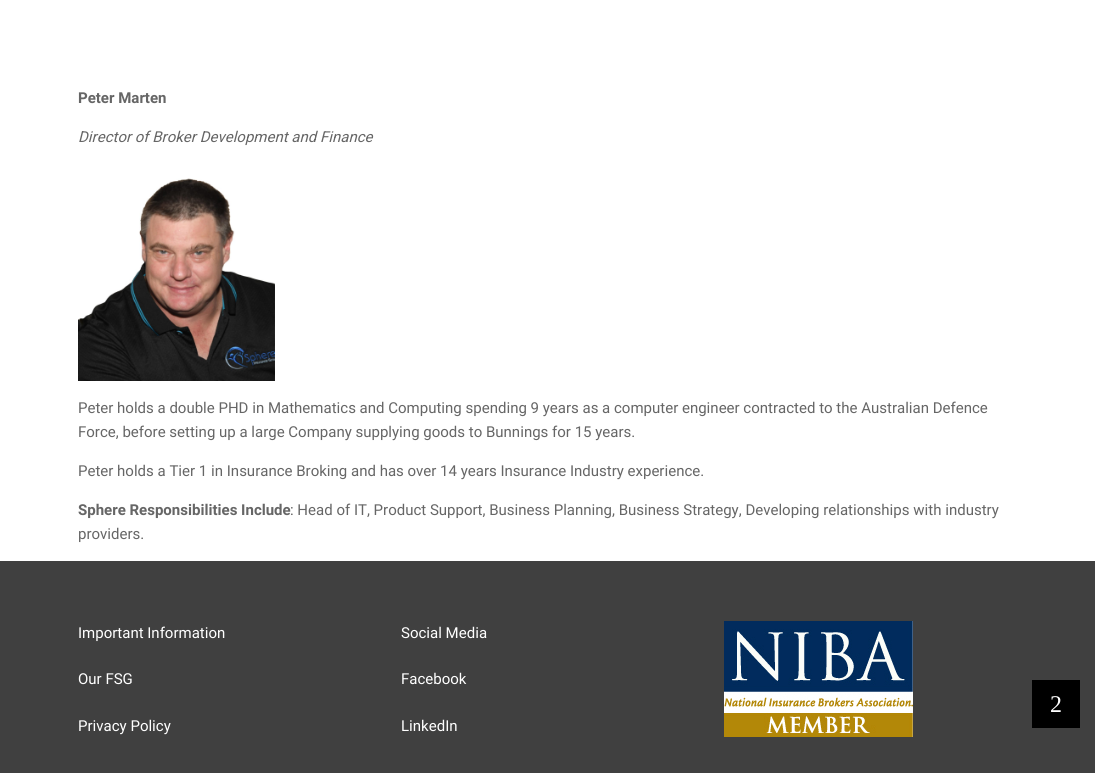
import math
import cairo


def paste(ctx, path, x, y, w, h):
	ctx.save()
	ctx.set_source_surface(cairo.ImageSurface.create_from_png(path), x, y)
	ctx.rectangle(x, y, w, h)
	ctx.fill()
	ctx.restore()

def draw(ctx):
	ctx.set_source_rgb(1, 1, 1)
	ctx.paint()
	ctx.select_font_face('Heebo', cairo.FONT_SLANT_NORMAL, cairo.FONT_WEIGHT_BOLD)
	ctx.set_font_size(15)
	ctx.set_source_rgb(0.4, 0.4, 0.4)
	ctx.move_to(78, 103)
	ctx.show_text('Peter Marten')
	ctx.select_font_face('Heebo', cairo.FONT_SLANT_ITALIC)
	ctx.move_to(78, 142)
	ctx.show_text('Director of Broker Development and Finance')
	paste(ctx, 'media/1.png', 78, 178, 197, 203)
	ctx.select_font_face('Heebo')
	for x, y, s in [
		(78, 413, 'Peter holds a double PHD in Mathematics and Computing spending 9 years as a computer engineer contracted to the Australian Defence'),
		(78, 437, 'Force, before setting up a large Company supplying goods to Bunnings for 15 years.'),
		(78, 476, 'Peter holds a Tier 1 in Insurance Broking and has over 14 years Insurance Industry experience.'),
	]:
		ctx.move_to(x, y)
		ctx.show_text(s)
	ctx.select_font_face('Heebo', cairo.FONT_SLANT_NORMAL, cairo.FONT_WEIGHT_BOLD)
	ctx.move_to(78, 515)
	ctx.show_text('Sphere Responsibilities Include')
	ctx.select_font_face('Heebo')
	ctx.move_to(290, 515)
	ctx.show_text(': Head of IT, Product Support, Business Planning, Business Strategy, Developing relationships with industry')
	ctx.move_to(78, 539)
	ctx.show_text('providers.')
	ctx.set_source_rgb(0.251, 0.251, 0.251)
	ctx.rectangle(0, 561, 1095, 212)
	ctx.fill()
	ctx.set_source_rgb(1, 1, 1)
	for x, y, s in [
		(78, 638, 'Important Information'),
		(78, 684, 'Our FSG'),
		(78, 731, 'Privacy Policy'),
		(401, 638, 'Social Media'),
		(401, 684, 'Facebook'),
		(401, 731, 'LinkedIn'),
	]:
		ctx.move_to(x, y)
		ctx.show_text(s)
	paste(ctx, 'media/2.png', 724, 621, 189, 116)
	ctx.set_source_rgb(0, 0, 0)
	ctx.rectangle(1032, 680, 48, 48)
	ctx.fill()
	ctx.select_font_face('Liberation Serif')
	ctx.set_font_size(24)
	ctx.set_source_rgb(1, 1, 1)
	ctx.move_to(1050, 712)
	ctx.show_text('2')


surface = cairo.ImageSurface(cairo.FORMAT_RGB24, 1095, 773)
ctx = cairo.Context(surface)
options = cairo.FontOptions()
options.set_hint_metrics(cairo.HINT_METRICS_OFF)
options.set_hint_style(cairo.HINT_STYLE_NONE)
ctx.set_font_options(options)
ctx.set_miter_limit(4)
draw(ctx)
surface.write_to_png('image.png')
